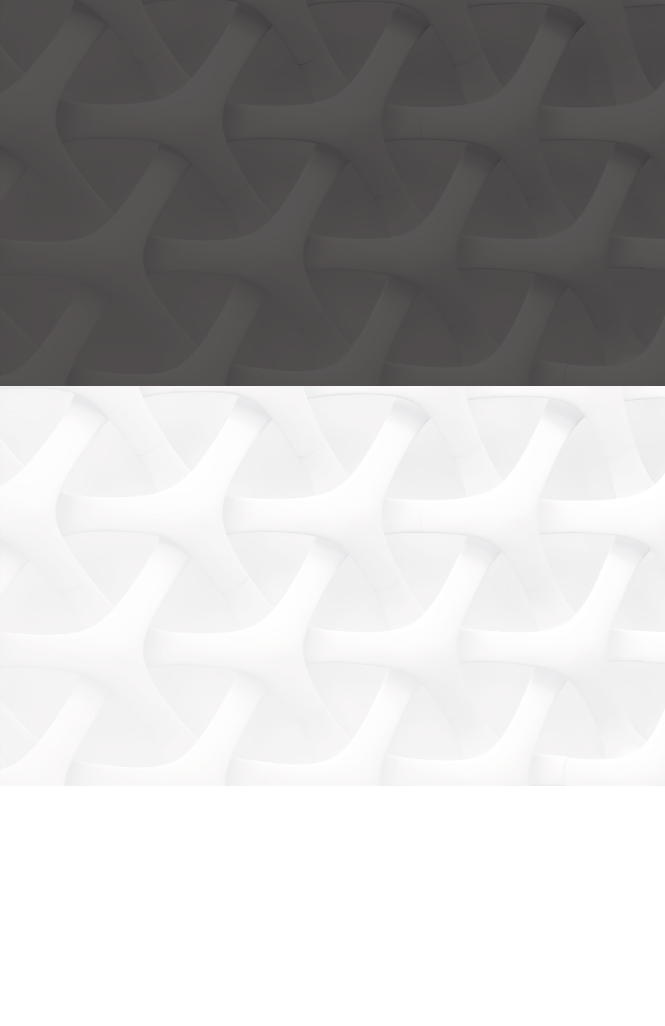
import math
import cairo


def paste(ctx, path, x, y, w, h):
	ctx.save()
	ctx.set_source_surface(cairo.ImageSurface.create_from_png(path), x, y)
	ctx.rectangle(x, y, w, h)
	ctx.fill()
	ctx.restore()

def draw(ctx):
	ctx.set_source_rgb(1, 1, 1)
	ctx.paint()
	paste(ctx, 'media/1.png', 0, 0, 665, 386)
	paste(ctx, 'media/2.png', 0, 386, 665, 400)


surface = cairo.ImageSurface(cairo.FORMAT_RGB24, 665, 1026)
ctx = cairo.Context(surface)
options = cairo.FontOptions()
options.set_hint_metrics(cairo.HINT_METRICS_OFF)
options.set_hint_style(cairo.HINT_STYLE_NONE)
ctx.set_font_options(options)
ctx.set_miter_limit(4)
draw(ctx)
surface.write_to_png('image.png')
